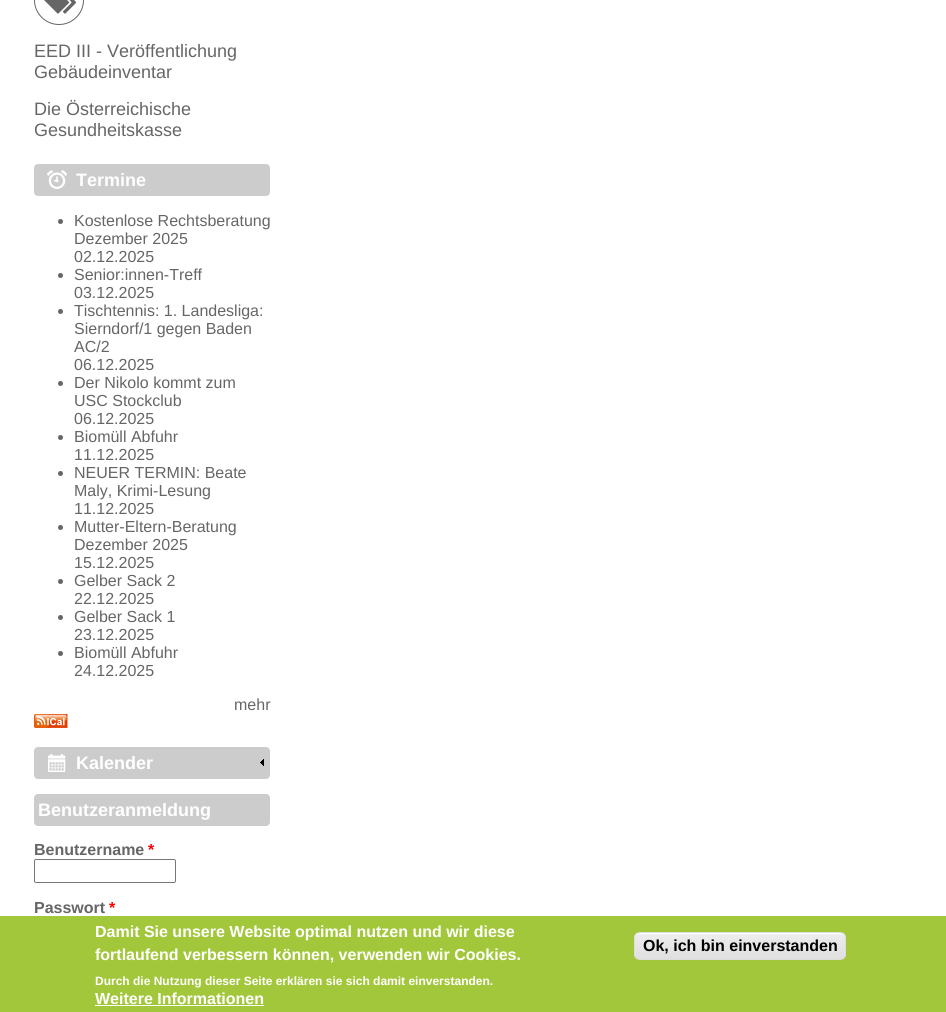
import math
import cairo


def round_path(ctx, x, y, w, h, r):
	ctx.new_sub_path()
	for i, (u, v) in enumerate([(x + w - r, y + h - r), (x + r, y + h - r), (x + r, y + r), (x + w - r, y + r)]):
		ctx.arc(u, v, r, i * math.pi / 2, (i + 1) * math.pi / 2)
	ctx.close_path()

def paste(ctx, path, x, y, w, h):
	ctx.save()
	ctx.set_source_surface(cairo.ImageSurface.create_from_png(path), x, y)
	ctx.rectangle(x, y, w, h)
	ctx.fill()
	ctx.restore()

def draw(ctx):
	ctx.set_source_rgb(1, 1, 1)
	ctx.paint()
	ctx.arc(59, 0, 24.5, 0, 2 * math.pi)
	ctx.set_source_rgb(0.4, 0.4, 0.4)
	ctx.set_line_width(1)
	ctx.stroke()
	paste(ctx, 'media/1.png', 44, 0, 32, 14)
	ctx.select_font_face('Liberation Sans')
	ctx.set_font_size(18)
	for x, y, s in [
		(34, 57, 'EED III - Veröffentlichung'),
		(34, 78, 'Gebäudeinventar'),
		(34, 115, 'Die Österreichische'),
		(34, 136, 'Gesundheitskasse'),
	]:
		ctx.move_to(x, y)
		ctx.show_text(s)
	ctx.set_source_rgb(0.8, 0.8, 0.8)
	round_path(ctx, 34, 164, 236, 32, 4)
	ctx.fill()
	paste(ctx, 'media/2.png', 47, 170, 20, 19)
	ctx.select_font_face('Liberation Sans', cairo.FONT_SLANT_NORMAL, cairo.FONT_WEIGHT_BOLD)
	ctx.set_source_rgb(1, 1, 1)
	ctx.move_to(76, 186)
	ctx.show_text('Termine')
	ctx.set_source_rgb(0.4, 0.4, 0.4)
	ctx.new_path()
	ctx.arc(60.5, 221.5, 2.5, 0, 2 * math.pi)
	ctx.fill()
	ctx.select_font_face('Liberation Sans')
	ctx.set_font_size(16)
	for x, y, s in [
		(74, 226, 'Kostenlose Rechtsberatung'),
		(74, 244, 'Dezember 2025'),
		(74, 262, '02.12.2025'),
	]:
		ctx.move_to(x, y)
		ctx.show_text(s)
	ctx.new_path()
	ctx.arc(60.5, 275.5, 2.5, 0, 2 * math.pi)
	ctx.fill()
	ctx.move_to(74, 280)
	ctx.show_text('Senior:innen-Treff')
	ctx.move_to(74, 298)
	ctx.show_text('03.12.2025')
	ctx.new_path()
	ctx.arc(60.5, 311.5, 2.5, 0, 2 * math.pi)
	ctx.fill()
	for x, y, s in [
		(74, 316, 'Tischtennis: 1. Landesliga:'),
		(74, 334, 'Sierndorf/1 gegen Baden'),
		(74, 352, 'AC/2'),
		(74, 370, '06.12.2025'),
	]:
		ctx.move_to(x, y)
		ctx.show_text(s)
	ctx.new_path()
	ctx.arc(60.5, 383.5, 2.5, 0, 2 * math.pi)
	ctx.fill()
	for x, y, s in [
		(74, 388, 'Der Nikolo kommt zum'),
		(74, 406, 'USC Stockclub'),
		(74, 424, '06.12.2025'),
	]:
		ctx.move_to(x, y)
		ctx.show_text(s)
	ctx.new_path()
	ctx.arc(60.5, 437.5, 2.5, 0, 2 * math.pi)
	ctx.fill()
	ctx.move_to(74, 442)
	ctx.show_text('Biomüll Abfuhr')
	ctx.move_to(74, 460)
	ctx.show_text('11.12.2025')
	ctx.new_path()
	ctx.arc(60.5, 473.5, 2.5, 0, 2 * math.pi)
	ctx.fill()
	for x, y, s in [
		(74, 478, 'NEUER TERMIN: Beate'),
		(74, 496, 'Maly, Krimi-Lesung'),
		(74, 514, '11.12.2025'),
	]:
		ctx.move_to(x, y)
		ctx.show_text(s)
	ctx.new_path()
	ctx.arc(60.5, 527.5, 2.5, 0, 2 * math.pi)
	ctx.fill()
	for x, y, s in [
		(74, 532, 'Mutter-Eltern-Beratung'),
		(74, 550, 'Dezember 2025'),
		(74, 568, '15.12.2025'),
	]:
		ctx.move_to(x, y)
		ctx.show_text(s)
	ctx.new_path()
	ctx.arc(60.5, 581.5, 2.5, 0, 2 * math.pi)
	ctx.fill()
	ctx.move_to(74, 586)
	ctx.show_text('Gelber Sack 2')
	ctx.move_to(74, 604)
	ctx.show_text('22.12.2025')
	ctx.new_path()
	ctx.arc(60.5, 617.5, 2.5, 0, 2 * math.pi)
	ctx.fill()
	ctx.move_to(74, 622)
	ctx.show_text('Gelber Sack 1')
	ctx.move_to(74, 640)
	ctx.show_text('23.12.2025')
	ctx.new_path()
	ctx.arc(60.5, 653.5, 2.5, 0, 2 * math.pi)
	ctx.fill()
	for x, y, s in [
		(74, 658, 'Biomüll Abfuhr'),
		(74, 676, '24.12.2025'),
		(234, 710, 'mehr'),
	]:
		ctx.move_to(x, y)
		ctx.show_text(s)
	paste(ctx, 'media/3.png', 34, 714, 34, 14)
	ctx.set_source_rgb(0.8, 0.8, 0.8)
	round_path(ctx, 34, 747, 236, 32, 4)
	ctx.fill()
	paste(ctx, 'media/4.png', 48, 754, 18, 18)
	paste(ctx, 'media/5.png', 260, 759, 4, 7)
	ctx.select_font_face('Liberation Sans', cairo.FONT_SLANT_NORMAL, cairo.FONT_WEIGHT_BOLD)
	ctx.set_font_size(18)
	ctx.set_source_rgb(1, 1, 1)
	ctx.move_to(76, 769)
	ctx.show_text('Kalender')
	ctx.set_source_rgb(0.8, 0.8, 0.8)
	round_path(ctx, 34, 794, 236, 32, 4)
	ctx.fill()
	ctx.set_source_rgb(1, 1, 1)
	ctx.move_to(38, 816)
	ctx.show_text('Benutzeranmeldung')
	ctx.set_font_size(16)
	ctx.set_source_rgb(0.4, 0.4, 0.4)
	ctx.move_to(34, 855)
	ctx.show_text('Benutzername')
	ctx.set_source_rgb(1, 0, 0)
	ctx.move_to(148, 855)
	ctx.show_text('*')
	round_path(ctx, 34.5, 859.5, 141, 23, 1.5)
	ctx.set_source_rgb(0.463, 0.463, 0.463)
	ctx.stroke()
	ctx.set_source_rgb(0.4, 0.4, 0.4)
	ctx.move_to(34, 913)
	ctx.show_text('Passwort')
	ctx.set_source_rgb(1, 0, 0)
	ctx.move_to(109, 913)
	ctx.show_text('*')
	ctx.set_source_rgb(0.635, 0.78, 0.231)
	ctx.rectangle(0, 916, 946, 96)
	ctx.fill()
	ctx.set_source_rgb(1, 1, 1)
	ctx.move_to(95, 937)
	ctx.show_text('Damit Sie unsere Website optimal nutzen und wir diese')
	ctx.move_to(95, 960)
	ctx.show_text('fortlaufend verbessern können, verwenden wir Cookies.')
	ctx.set_font_size(12)
	ctx.move_to(95, 985)
	ctx.show_text('Durch die Nutzung dieser Seite erklären sie sich damit einverstanden.')
	ctx.set_font_size(16)
	ctx.move_to(95, 1004)
	ctx.show_text('Weitere Informationen')
	ctx.rectangle(95, 1005, 169, 1)
	ctx.fill()
	ctx.save()
	round_path(ctx, 634, 932, 212, 28, 6)
	ctx.clip()
	gradient = cairo.LinearGradient(740, 933, 740, 959)
	gradient.add_color_stop_rgba(0.05, 0.929, 0.929, 0.929, 1)
	gradient.add_color_stop_rgba(1, 0.875, 0.875, 0.875, 1)
	ctx.set_source(gradient)
	ctx.rectangle(634, 933, 212, 26)
	ctx.fill()
	ctx.restore()
	ctx.new_path()
	ctx.move_to(640, 934)
	ctx.line_to(840, 934)
	ctx.curve_to(843, 934, 845, 936, 845, 939)
	ctx.line_to(845, 938)
	ctx.curve_to(845, 935, 843, 933, 840, 933)
	ctx.line_to(640, 933)
	ctx.curve_to(637, 933, 635, 935, 635, 938)
	ctx.line_to(635, 939)
	ctx.curve_to(635, 936, 637, 934, 640, 934)
	ctx.close_path()
	ctx.fill()
	round_path(ctx, 634.5, 932.5, 211, 27, 5.5)
	ctx.set_source_rgb(0.863, 0.863, 0.863)
	ctx.stroke()
	ctx.set_source_rgb(0, 0, 0)
	ctx.move_to(643, 951)
	ctx.show_text('Ok, ich bin einverstanden')


surface = cairo.ImageSurface(cairo.FORMAT_RGB24, 946, 1012)
ctx = cairo.Context(surface)
options = cairo.FontOptions()
options.set_hint_metrics(cairo.HINT_METRICS_OFF)
options.set_hint_style(cairo.HINT_STYLE_NONE)
ctx.set_font_options(options)
ctx.set_miter_limit(4)
draw(ctx)
surface.write_to_png('image.png')
